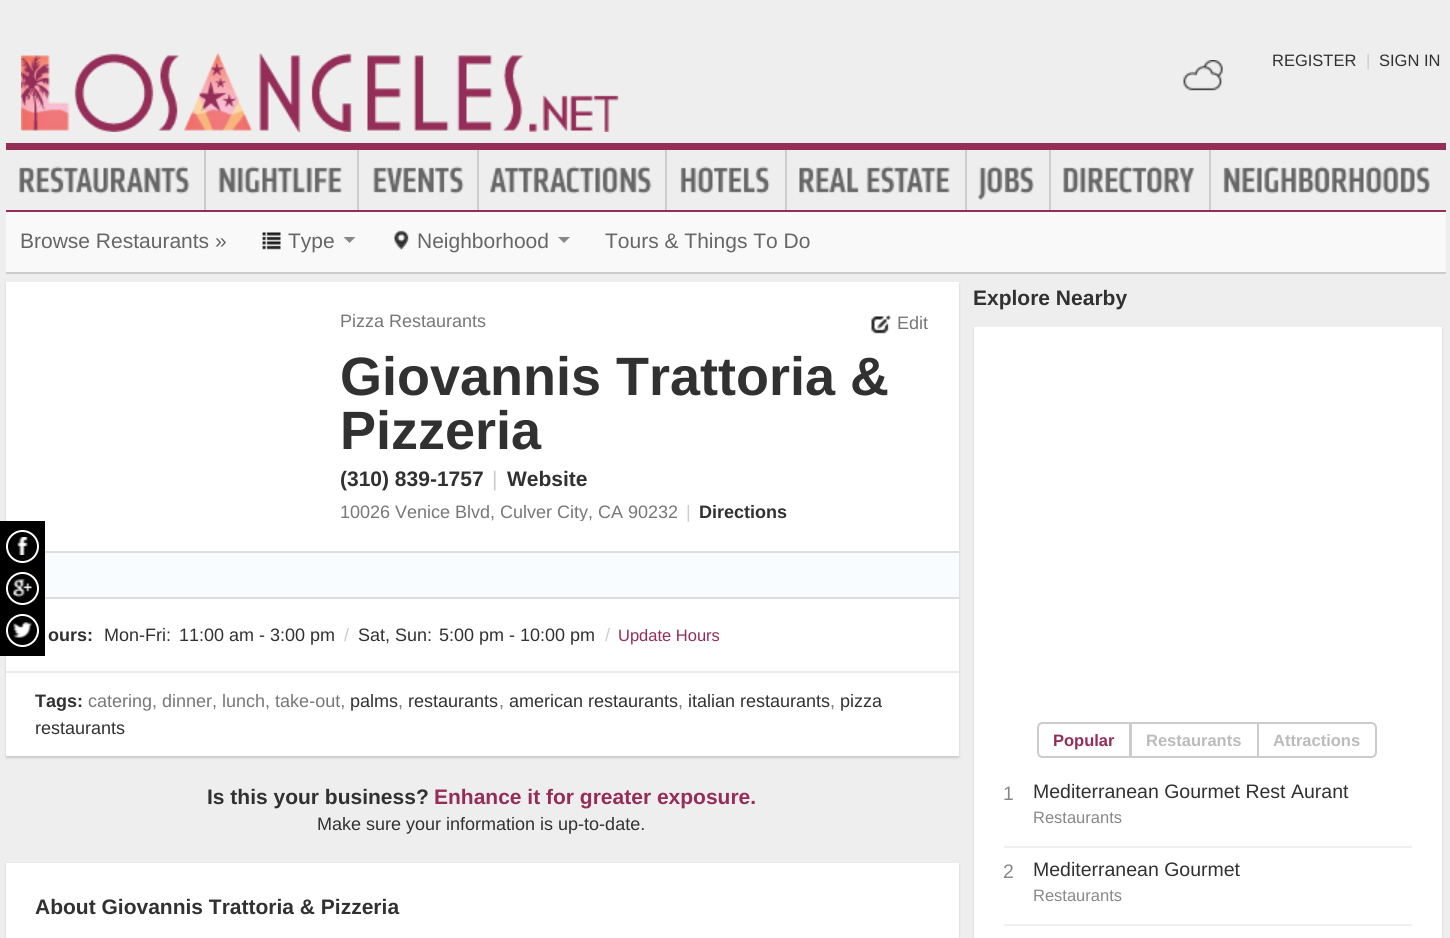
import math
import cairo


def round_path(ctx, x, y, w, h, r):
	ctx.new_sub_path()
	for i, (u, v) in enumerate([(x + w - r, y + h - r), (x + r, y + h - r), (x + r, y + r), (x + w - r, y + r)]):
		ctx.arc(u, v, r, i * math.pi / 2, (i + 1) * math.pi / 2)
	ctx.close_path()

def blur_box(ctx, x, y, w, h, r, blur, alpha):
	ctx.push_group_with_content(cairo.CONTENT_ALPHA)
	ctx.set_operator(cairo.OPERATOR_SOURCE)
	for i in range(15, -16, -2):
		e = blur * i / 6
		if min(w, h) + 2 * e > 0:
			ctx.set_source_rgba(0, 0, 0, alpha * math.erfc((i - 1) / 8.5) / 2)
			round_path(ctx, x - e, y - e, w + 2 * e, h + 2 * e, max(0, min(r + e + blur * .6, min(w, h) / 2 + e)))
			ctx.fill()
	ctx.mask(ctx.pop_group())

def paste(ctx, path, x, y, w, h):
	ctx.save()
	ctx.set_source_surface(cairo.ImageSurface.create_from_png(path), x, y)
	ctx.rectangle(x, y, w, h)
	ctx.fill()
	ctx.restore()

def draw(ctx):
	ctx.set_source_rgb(0.933, 0.933, 0.933)
	ctx.paint()
	paste(ctx, 'media/1.png', 21, 52, 598, 80)
	paste(ctx, 'media/2.png', 1183, 60, 40, 31)
	ctx.select_font_face('Liberation Sans')
	ctx.set_font_size(16.5)
	ctx.set_source_rgb(0.192, 0.192, 0.192)
	ctx.move_to(1272, 66)
	ctx.show_text('REGISTER')
	ctx.set_source_rgb(0.8, 0.8, 0.8)
	ctx.move_to(1366, 66)
	ctx.show_text('|')
	ctx.set_source_rgb(0.192, 0.192, 0.192)
	ctx.move_to(1379, 66)
	ctx.show_text('SIGN IN')
	ctx.set_source_rgb(0.58, 0.176, 0.345)
	ctx.rectangle(6, 143, 1440, 7)
	ctx.rectangle(6, 210, 1440, 2)
	ctx.fill()
	ctx.set_source_rgb(0.8, 0.8, 0.8)
	ctx.rectangle(204, 150, 2, 60)
	ctx.fill()
	paste(ctx, 'media/3.png', 19, 166, 171, 28)
	ctx.rectangle(357, 150, 2, 60)
	ctx.fill()
	paste(ctx, 'media/4.png', 218, 166, 125, 28)
	ctx.rectangle(477, 150, 2, 60)
	ctx.fill()
	paste(ctx, 'media/5.png', 373, 166, 91, 28)
	ctx.rectangle(665, 150, 2, 60)
	ctx.fill()
	paste(ctx, 'media/6.png', 489, 166, 163, 28)
	ctx.rectangle(785, 150, 2, 60)
	ctx.fill()
	paste(ctx, 'media/7.png', 680, 166, 90, 28)
	ctx.rectangle(965, 150, 2, 60)
	ctx.fill()
	paste(ctx, 'media/8.png', 799, 166, 151, 28)
	ctx.rectangle(1049, 150, 2, 60)
	ctx.fill()
	paste(ctx, 'media/9.png', 977, 166, 57, 34)
	ctx.rectangle(1209, 150, 2, 60)
	ctx.fill()
	paste(ctx, 'media/10.png', 1063, 166, 132, 28)
	paste(ctx, 'media/11.png', 1223, 166, 207, 28)
	ctx.set_source_rgb(0.973, 0.973, 0.973)
	ctx.rectangle(6, 212, 1440, 60)
	ctx.fill()
	ctx.set_source_rgb(0.796, 0.796, 0.796)
	ctx.rectangle(6, 272, 1440, 2)
	ctx.fill()
	ctx.set_font_size(21)
	ctx.set_source_rgb(0.4, 0.4, 0.4)
	ctx.move_to(20, 248)
	ctx.show_text('Browse Restaurants »')
	paste(ctx, 'media/12.png', 262, 232, 19, 18)
	ctx.move_to(288, 248)
	ctx.show_text('Type')
	ctx.set_source_rgb(0.533, 0.533, 0.533)
	ctx.new_path()
	ctx.move_to(343.5, 237)
	ctx.line_to(355.5, 237)
	ctx.line_to(349.5, 243)
	ctx.close_path()
	ctx.fill()
	paste(ctx, 'media/13.png', 394, 230, 15, 20)
	ctx.set_source_rgb(0.4, 0.4, 0.4)
	ctx.move_to(417, 248)
	ctx.show_text('Neighborhood')
	ctx.set_source_rgb(0.533, 0.533, 0.533)
	ctx.new_path()
	ctx.move_to(558, 237)
	ctx.line_to(570, 237)
	ctx.line_to(564, 243)
	ctx.close_path()
	ctx.fill()
	ctx.set_source_rgb(0.4, 0.4, 0.4)
	ctx.move_to(605, 248)
	ctx.show_text('Tours & Things To Do')
	ctx.set_source_rgb(0.796, 0.796, 0.796)
	blur_box(ctx, 6, 284, 953, 474, 0, 1, 1)
	ctx.set_source_rgb(1, 1, 1)
	ctx.rectangle(6, 282, 953, 474)
	ctx.fill()
	ctx.set_font_size(18)
	ctx.set_source_rgb(0.467, 0.467, 0.467)
	ctx.move_to(340, 327)
	ctx.show_text('Pizza Restaurants')
	paste(ctx, 'media/14.png', 871, 314, 20, 20)
	ctx.move_to(897, 329)
	ctx.show_text('Edit')
	ctx.select_font_face('Liberation Sans', cairo.FONT_SLANT_NORMAL, cairo.FONT_WEIGHT_BOLD)
	ctx.set_font_size(54)
	ctx.set_source_rgb(0.192, 0.192, 0.192)
	ctx.move_to(340, 395)
	ctx.show_text('Giovannis Trattoria &')
	ctx.move_to(340, 449)
	ctx.show_text('Pizzeria')
	ctx.save()
	ctx.rectangle(341, 312, 588, 209)
	ctx.clip()
	ctx.set_font_size(21)
	ctx.move_to(340, 486)
	ctx.show_text('(310) 839-1757')
	ctx.restore()
	ctx.select_font_face('Liberation Sans')
	ctx.set_font_size(21)
	ctx.set_source_rgb(0.8, 0.8, 0.8)
	ctx.move_to(492, 486)
	ctx.show_text('|')
	ctx.select_font_face('Liberation Sans', cairo.FONT_SLANT_NORMAL, cairo.FONT_WEIGHT_BOLD)
	ctx.set_source_rgb(0.192, 0.192, 0.192)
	ctx.move_to(507, 486)
	ctx.show_text('Website')
	ctx.select_font_face('Liberation Sans')
	ctx.set_font_size(18)
	ctx.set_source_rgb(0.467, 0.467, 0.467)
	ctx.move_to(340, 518)
	ctx.show_text('10026 Venice Blvd')
	ctx.save()
	ctx.rectangle(341, 312, 588, 209)
	ctx.clip()
	ctx.move_to(490, 518)
	ctx.show_text(', Culver City')
	ctx.restore()
	ctx.move_to(588, 518)
	ctx.show_text(', CA 90232')
	ctx.set_source_rgb(0.8, 0.8, 0.8)
	ctx.move_to(686, 518)
	ctx.show_text('|')
	ctx.select_font_face('Liberation Sans', cairo.FONT_SLANT_NORMAL, cairo.FONT_WEIGHT_BOLD)
	ctx.set_source_rgb(0.192, 0.192, 0.192)
	ctx.move_to(699, 518)
	ctx.show_text('Directions')
	ctx.set_source_rgb(0.973, 0.988, 1)
	ctx.rectangle(45, 553, 914, 44)
	ctx.fill()
	ctx.set_source_rgb(0.867, 0.867, 0.867)
	ctx.rectangle(45, 551, 914, 2)
	ctx.rectangle(45, 597, 914, 2)
	ctx.fill()
	ctx.set_source_rgb(0.192, 0.192, 0.192)
	ctx.move_to(48, 641)
	ctx.show_text('ours:')
	ctx.select_font_face('Liberation Sans')
	ctx.move_to(104, 641)
	ctx.show_text('Mon-Fri:')
	ctx.move_to(179, 641)
	ctx.show_text('11:00 am - 3:00 pm')
	ctx.set_source_rgb(0.8, 0.8, 0.8)
	ctx.move_to(344, 641)
	ctx.show_text('/')
	ctx.set_source_rgb(0.192, 0.192, 0.192)
	ctx.move_to(358, 641)
	ctx.show_text('Sat, Sun:')
	ctx.move_to(439, 641)
	ctx.show_text('5:00 pm - 10:00 pm')
	ctx.set_source_rgb(0.8, 0.8, 0.8)
	ctx.move_to(605, 641)
	ctx.show_text('/')
	ctx.set_font_size(16.5)
	ctx.set_source_rgb(0.58, 0.176, 0.345)
	ctx.move_to(618, 641)
	ctx.show_text('Update Hours')
	ctx.set_source_rgb(0.918, 0.918, 0.918)
	ctx.rectangle(6, 671, 953, 2)
	ctx.fill()
	ctx.select_font_face('Liberation Sans', cairo.FONT_SLANT_NORMAL, cairo.FONT_WEIGHT_BOLD)
	ctx.set_font_size(18)
	ctx.set_source_rgb(0.192, 0.192, 0.192)
	ctx.move_to(35, 707)
	ctx.show_text('Tags:')
	ctx.select_font_face('Liberation Sans')
	ctx.set_source_rgb(0.467, 0.467, 0.467)
	ctx.move_to(88, 707)
	ctx.show_text('catering, dinner, lunch, take-out,')
	ctx.set_source_rgb(0.192, 0.192, 0.192)
	ctx.move_to(350, 707)
	ctx.show_text('palms')
	ctx.set_source_rgb(0.467, 0.467, 0.467)
	ctx.move_to(398, 707)
	ctx.show_text(',')
	ctx.set_source_rgb(0.192, 0.192, 0.192)
	ctx.move_to(408, 707)
	ctx.show_text('restaurants')
	ctx.set_source_rgb(0.467, 0.467, 0.467)
	ctx.move_to(499, 707)
	ctx.show_text(',')
	ctx.set_source_rgb(0.192, 0.192, 0.192)
	ctx.move_to(509, 707)
	ctx.show_text('american restaurants')
	ctx.set_source_rgb(0.467, 0.467, 0.467)
	ctx.move_to(678, 707)
	ctx.show_text(',')
	ctx.set_source_rgb(0.192, 0.192, 0.192)
	ctx.move_to(688, 707)
	ctx.show_text('italian restaurants')
	ctx.set_source_rgb(0.467, 0.467, 0.467)
	ctx.move_to(830, 707)
	ctx.show_text(',')
	ctx.set_source_rgb(0.192, 0.192, 0.192)
	ctx.move_to(840, 707)
	ctx.show_text('pizza')
	ctx.move_to(35, 734)
	ctx.show_text('restaurants')
	ctx.select_font_face('Liberation Sans', cairo.FONT_SLANT_NORMAL, cairo.FONT_WEIGHT_BOLD)
	ctx.set_font_size(21)
	ctx.move_to(207, 804)
	ctx.show_text('Is this your business?')
	ctx.set_source_rgb(0.58, 0.176, 0.345)
	ctx.move_to(434, 804)
	ctx.show_text('Enhance it for greater exposure.')
	ctx.select_font_face('Liberation Sans')
	ctx.set_font_size(18)
	ctx.set_source_rgb(0.192, 0.192, 0.192)
	ctx.move_to(317, 830)
	ctx.show_text('Make sure your information is up-to-date.')
	ctx.set_source_rgb(0.796, 0.796, 0.796)
	blur_box(ctx, 6, 864, 953, 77, 0, 1, 1)
	ctx.set_source_rgb(1, 1, 1)
	ctx.rectangle(6, 863, 953, 75)
	ctx.fill()
	ctx.select_font_face('Liberation Sans', cairo.FONT_SLANT_NORMAL, cairo.FONT_WEIGHT_BOLD)
	ctx.set_font_size(21)
	ctx.set_source_rgb(0.192, 0.192, 0.192)
	ctx.move_to(35, 914)
	ctx.show_text('About Giovannis Trattoria & Pizzeria')
	ctx.move_to(973, 305)
	ctx.show_text('Explore Nearby')
	ctx.set_source_rgb(0.796, 0.796, 0.796)
	blur_box(ctx, 974, 329, 468, 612, 0, 1, 1)
	ctx.set_source_rgb(1, 1, 1)
	ctx.rectangle(974, 327, 468, 611)
	ctx.fill()
	ctx.new_path()
	ctx.move_to(1043, 723)
	ctx.line_to(1130, 723)
	ctx.line_to(1130, 757)
	ctx.line_to(1043, 757)
	ctx.curve_to(1040, 757, 1038, 755, 1038, 752)
	ctx.line_to(1038, 728)
	ctx.curve_to(1038, 725, 1040, 723, 1043, 723)
	ctx.close_path()
	ctx.set_source_rgb(0.8, 0.8, 0.8)
	ctx.stroke()
	ctx.set_font_size(16.5)
	ctx.set_source_rgb(0.58, 0.176, 0.345)
	ctx.move_to(1053, 746)
	ctx.show_text('Popular')
	ctx.rectangle(1131, 723, 127, 34)
	ctx.set_source_rgb(0.8, 0.8, 0.8)
	ctx.stroke()
	ctx.set_source_rgb(0.733, 0.733, 0.733)
	ctx.move_to(1146, 746)
	ctx.show_text('Restaurants')
	ctx.new_path()
	ctx.move_to(1258, 723)
	ctx.line_to(1371, 723)
	ctx.curve_to(1374, 723, 1376, 725, 1376, 728)
	ctx.line_to(1376, 752)
	ctx.curve_to(1376, 755, 1374, 757, 1371, 757)
	ctx.line_to(1258, 757)
	ctx.close_path()
	ctx.set_source_rgb(0.8, 0.8, 0.8)
	ctx.stroke()
	ctx.set_source_rgb(0.733, 0.733, 0.733)
	ctx.move_to(1273, 746)
	ctx.show_text('Attractions')
	ctx.set_source_rgb(0.937, 0.937, 0.937)
	ctx.rectangle(1004, 846, 408, 2)
	ctx.fill()
	ctx.select_font_face('Liberation Sans')
	ctx.set_font_size(19.5)
	ctx.set_source_rgb(0.533, 0.533, 0.533)
	ctx.move_to(1003, 800)
	ctx.show_text('1')
	ctx.set_source_rgb(0.192, 0.192, 0.192)
	ctx.move_to(1033, 798)
	ctx.show_text('Mediterranean Gourmet Rest Aurant')
	ctx.set_font_size(16.5)
	ctx.set_source_rgb(0.533, 0.533, 0.533)
	ctx.move_to(1033, 823)
	ctx.show_text('Restaurants')
	ctx.set_source_rgb(0.937, 0.937, 0.937)
	ctx.rectangle(1004, 924, 408, 2)
	ctx.fill()
	ctx.save()
	ctx.rectangle(1004, 848, 408, 76)
	ctx.clip()
	ctx.set_font_size(19.5)
	ctx.set_source_rgb(0.533, 0.533, 0.533)
	ctx.move_to(1003, 878)
	ctx.show_text('2')
	ctx.restore()
	ctx.set_font_size(19.5)
	ctx.set_source_rgb(0.192, 0.192, 0.192)
	ctx.move_to(1033, 876)
	ctx.show_text('Mediterranean Gourmet')
	ctx.set_font_size(16.5)
	ctx.set_source_rgb(0.533, 0.533, 0.533)
	ctx.move_to(1033, 901)
	ctx.show_text('Restaurants')
	ctx.set_source_rgb(0, 0, 0)
	ctx.rectangle(0, 521, 45, 135)
	ctx.fill()
	ctx.arc(22.5, 546.5, 15.5, 0, 2 * math.pi)
	ctx.set_source_rgb(1, 1, 1)
	ctx.stroke()
	paste(ctx, 'media/15.png', 17, 537, 11, 18)
	ctx.arc(22.5, 588.5, 15.5, 0, 2 * math.pi)
	ctx.stroke()
	paste(ctx, 'media/16.png', 13, 579, 19, 18)
	ctx.arc(22.5, 630.5, 15.5, 0, 2 * math.pi)
	ctx.stroke()
	paste(ctx, 'media/17.png', 13, 622, 19, 16)


surface = cairo.ImageSurface(cairo.FORMAT_RGB24, 1450, 938)
ctx = cairo.Context(surface)
options = cairo.FontOptions()
options.set_hint_metrics(cairo.HINT_METRICS_OFF)
options.set_hint_style(cairo.HINT_STYLE_NONE)
ctx.set_font_options(options)
ctx.set_miter_limit(4)
draw(ctx)
surface.write_to_png('image.png')
